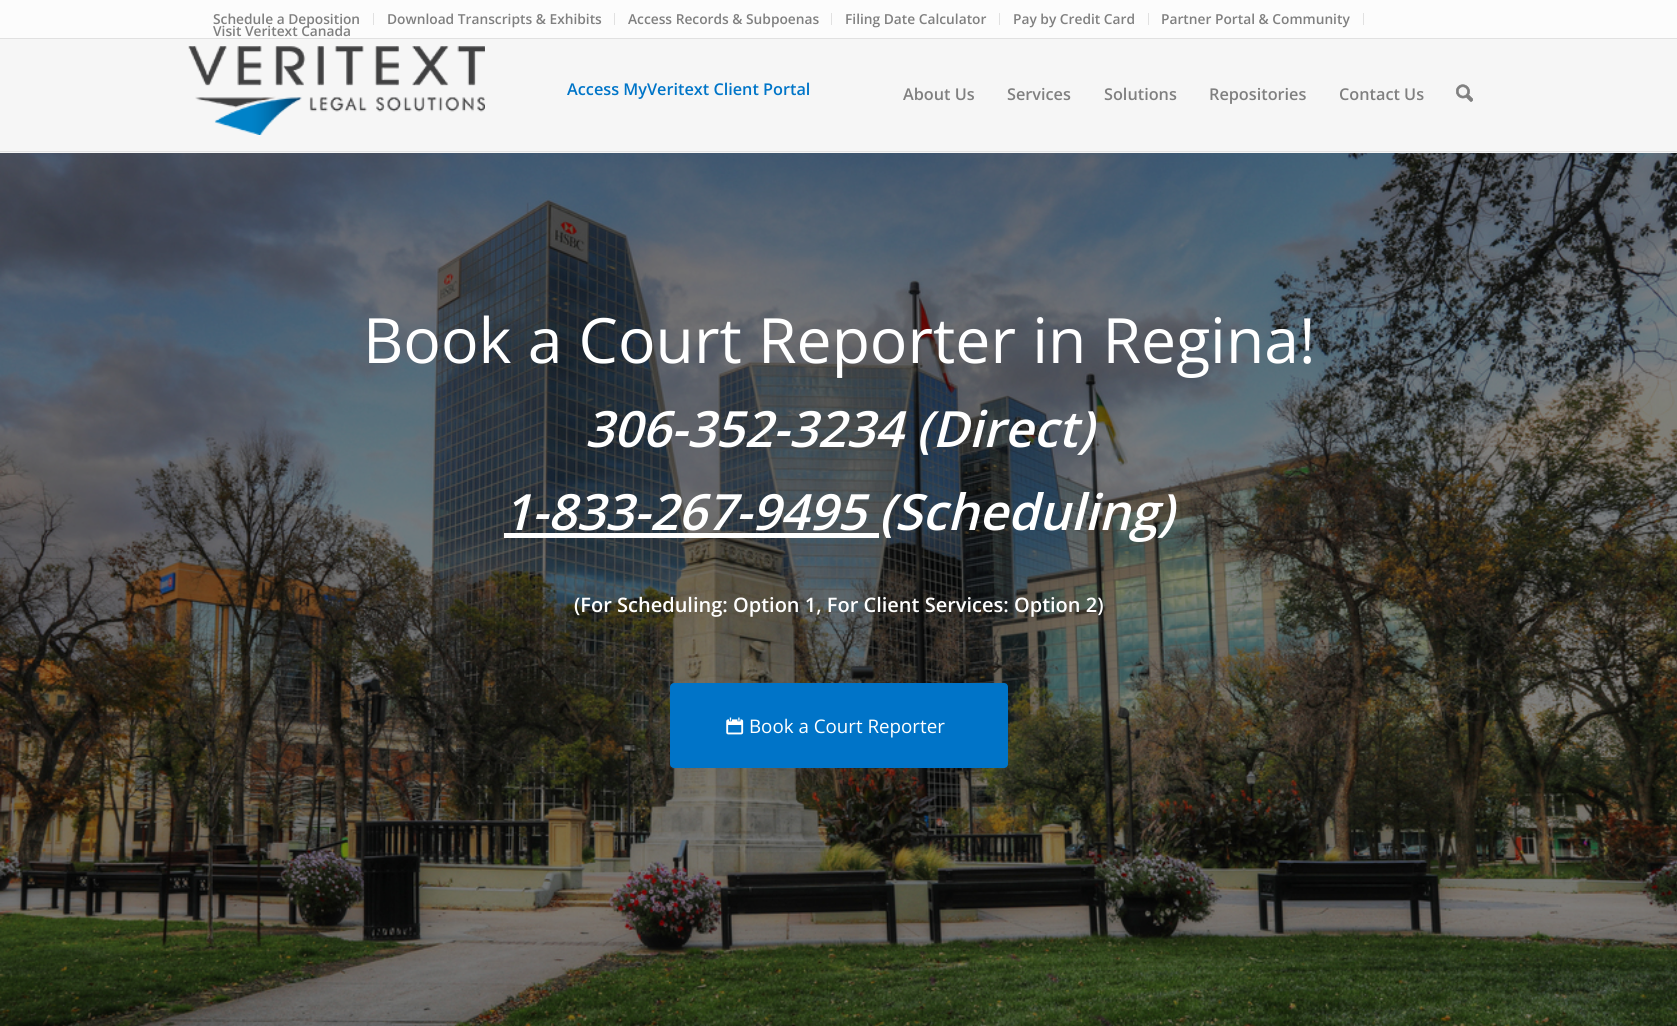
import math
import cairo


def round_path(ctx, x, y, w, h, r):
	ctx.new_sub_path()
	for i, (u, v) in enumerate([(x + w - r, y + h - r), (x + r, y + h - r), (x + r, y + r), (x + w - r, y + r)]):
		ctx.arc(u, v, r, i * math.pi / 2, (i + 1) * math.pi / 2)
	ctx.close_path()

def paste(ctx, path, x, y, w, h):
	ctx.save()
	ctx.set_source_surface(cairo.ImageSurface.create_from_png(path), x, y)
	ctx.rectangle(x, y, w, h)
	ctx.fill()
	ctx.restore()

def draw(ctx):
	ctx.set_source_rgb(1, 1, 1)
	ctx.paint()
	ctx.set_source_rgb(0.988, 0.988, 0.988)
	ctx.rectangle(0, 0, 1677, 38)
	ctx.fill()
	ctx.set_source_rgb(0.882, 0.882, 0.882)
	ctx.rectangle(0, 38, 1677, 1)
	ctx.rectangle(373, 13, 1, 12)
	ctx.fill()
	ctx.select_font_face('Open Sans SemiBold')
	ctx.set_font_size(13.75)
	ctx.set_source_rgb(0.502, 0.502, 0.502)
	ctx.move_to(213, 24)
	ctx.show_text('Schedule a Deposition')
	ctx.set_source_rgb(0.882, 0.882, 0.882)
	ctx.rectangle(614, 13, 1, 12)
	ctx.fill()
	ctx.set_source_rgb(0.502, 0.502, 0.502)
	ctx.move_to(387, 24)
	ctx.show_text('Download Transcripts & Exhibits')
	ctx.set_source_rgb(0.882, 0.882, 0.882)
	ctx.rectangle(831, 13, 1, 12)
	ctx.fill()
	ctx.set_source_rgb(0.502, 0.502, 0.502)
	ctx.move_to(628, 24)
	ctx.show_text('Access Records & Subpoenas')
	ctx.set_source_rgb(0.882, 0.882, 0.882)
	ctx.rectangle(999, 13, 1, 12)
	ctx.fill()
	ctx.set_source_rgb(0.502, 0.502, 0.502)
	ctx.move_to(845, 24)
	ctx.show_text('Filing Date Calculator')
	ctx.set_source_rgb(0.882, 0.882, 0.882)
	ctx.rectangle(1148, 13, 1, 12)
	ctx.fill()
	ctx.set_source_rgb(0.502, 0.502, 0.502)
	ctx.move_to(1013, 24)
	ctx.show_text('Pay by Credit Card')
	ctx.set_source_rgb(0.882, 0.882, 0.882)
	ctx.rectangle(1363, 13, 1, 12)
	ctx.fill()
	ctx.set_source_rgb(0.502, 0.502, 0.502)
	ctx.move_to(1161, 24)
	ctx.show_text('Partner Portal & Community')
	ctx.move_to(213, 36)
	ctx.show_text('Visit Veritext Canada')
	ctx.set_source_rgb(0.961, 0.961, 0.961)
	ctx.rectangle(0, 39, 1677, 114)
	ctx.fill()
	ctx.set_source_rgb(0.882, 0.882, 0.882)
	ctx.rectangle(0, 151, 1677, 1)
	ctx.fill()
	paste(ctx, 'media/1.png', 188, 46, 297, 89)
	ctx.set_font_size(16.25)
	ctx.set_source_rgb(0, 0.459, 0.784)
	ctx.move_to(567, 95)
	ctx.show_text('Access MyVeritext Client Portal')
	ctx.set_source_rgb(0.502, 0.502, 0.502)
	for x, y, s in [
		(903, 100, 'About Us'),
		(1007, 100, 'Services'),
		(1104, 100, 'Solutions'),
		(1209, 100, 'Repositories'),
		(1339, 100, 'Contact Us'),
	]:
		ctx.move_to(x, y)
		ctx.show_text(s)
	paste(ctx, 'media/2.png', 1456, 84, 17, 18)
	paste(ctx, 'media/3.png', 0, 153, 1677, 873)
	ctx.select_font_face('Open Sans')
	ctx.set_font_size(62.5)
	ctx.set_source_rgb(1, 1, 1)
	ctx.move_to(363, 363)
	ctx.show_text('Book a Court Reporter in Regina!')
	ctx.select_font_face('Open Sans SemiBold', cairo.FONT_SLANT_ITALIC)
	ctx.set_font_size(50)
	ctx.move_to(585, 447)
	ctx.show_text('306-352-3234 (Direct)')
	ctx.rectangle(504, 533, 375, 5)
	ctx.fill()
	ctx.move_to(503, 530)
	ctx.show_text('1-833-267-9495 (Scheduling)')
	ctx.select_font_face('Open Sans SemiBold')
	ctx.set_font_size(20)
	ctx.move_to(574, 612)
	ctx.show_text('(For Scheduling: Option 1, For Client Services: Option 2)')
	ctx.set_source_rgb(0, 0.455, 0.784)
	round_path(ctx, 670, 683, 338, 85, 4)
	ctx.fill()
	paste(ctx, 'media/4.png', 726, 717, 18, 18)
	ctx.select_font_face('Open Sans')
	ctx.set_font_size(18.75)
	ctx.set_source_rgb(1, 1, 1)
	ctx.move_to(749, 733)
	ctx.show_text('Book a Court Reporter')


surface = cairo.ImageSurface(cairo.FORMAT_RGB24, 1677, 1026)
ctx = cairo.Context(surface)
options = cairo.FontOptions()
options.set_hint_metrics(cairo.HINT_METRICS_OFF)
options.set_hint_style(cairo.HINT_STYLE_NONE)
ctx.set_font_options(options)
ctx.set_miter_limit(4)
draw(ctx)
surface.write_to_png('image.png')
